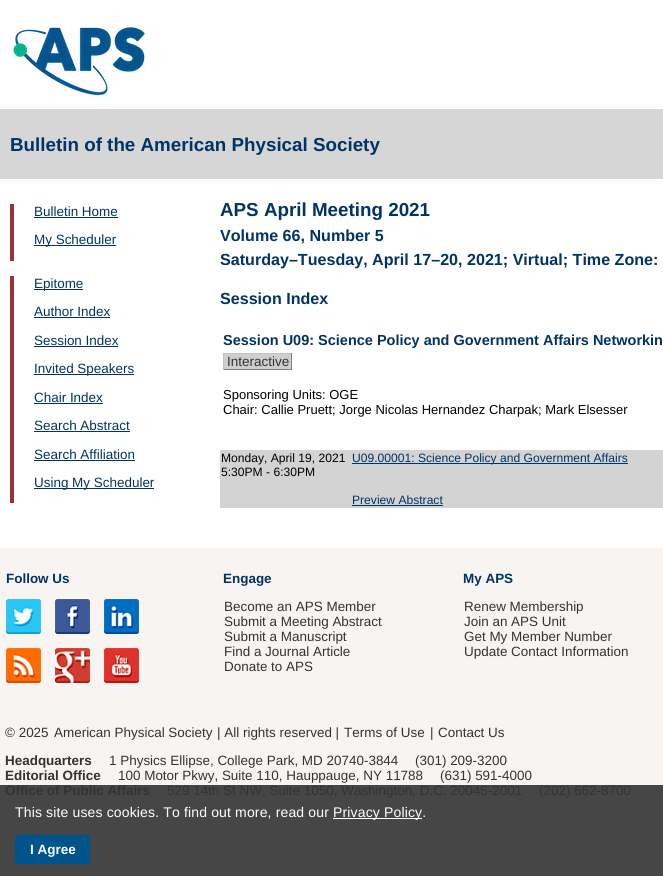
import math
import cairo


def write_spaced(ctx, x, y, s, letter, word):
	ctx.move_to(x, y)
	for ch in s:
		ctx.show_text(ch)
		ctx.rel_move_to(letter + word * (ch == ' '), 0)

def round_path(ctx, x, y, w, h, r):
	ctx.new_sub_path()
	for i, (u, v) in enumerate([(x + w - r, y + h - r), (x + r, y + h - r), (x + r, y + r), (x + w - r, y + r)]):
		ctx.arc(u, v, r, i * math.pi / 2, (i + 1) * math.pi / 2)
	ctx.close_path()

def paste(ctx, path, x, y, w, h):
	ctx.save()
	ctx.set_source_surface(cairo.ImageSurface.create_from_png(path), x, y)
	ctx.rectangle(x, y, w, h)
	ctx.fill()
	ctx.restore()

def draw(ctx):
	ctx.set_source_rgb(0.278, 0.275, 0.275)
	ctx.paint()
	paste(ctx, 'media/1.png', 0, 0, 663, 9)
	ctx.set_source_rgb(1, 1, 1)
	ctx.rectangle(0, 9, 663, 539)
	ctx.fill()
	paste(ctx, 'media/2.png', 13, 25, 132, 73)
	ctx.set_source_rgb(0.839, 0.839, 0.839)
	ctx.rectangle(0, 109, 663, 70)
	ctx.fill()
	ctx.select_font_face('Liberation Sans', cairo.FONT_SLANT_NORMAL, cairo.FONT_WEIGHT_BOLD)
	ctx.set_font_size(18.8)
	ctx.set_source_rgb(0, 0.2, 0.4)
	ctx.move_to(10, 151)
	ctx.show_text('Bulletin of the American Physical Society')
	ctx.set_source_rgb(0.6, 0.2, 0.2)
	ctx.rectangle(10, 204, 4, 57)
	ctx.fill()
	ctx.select_font_face('Liberation Sans')
	ctx.set_font_size(13.45)
	ctx.set_source_rgb(0, 0.2, 0.4)
	ctx.move_to(34, 216)
	ctx.show_text('Bulletin Home')
	ctx.rectangle(34, 217, 84, 1)
	ctx.fill()
	ctx.rectangle(34, 245, 82, 1)
	ctx.fill()
	ctx.move_to(34, 244)
	ctx.show_text('My Scheduler')
	ctx.set_source_rgb(0.6, 0.2, 0.2)
	ctx.rectangle(10, 276, 4, 227)
	ctx.fill()
	ctx.set_source_rgb(0, 0.2, 0.4)
	ctx.rectangle(34, 289, 49, 1)
	ctx.fill()
	ctx.move_to(34, 288)
	ctx.show_text('Epitome')
	ctx.move_to(34, 316)
	ctx.show_text('Author Index')
	ctx.rectangle(34, 317, 76, 1)
	ctx.fill()
	ctx.move_to(34, 345)
	ctx.show_text('Session Index')
	ctx.rectangle(34, 346, 84, 1)
	ctx.fill()
	ctx.rectangle(34, 374, 100, 1)
	ctx.fill()
	ctx.move_to(34, 373)
	ctx.show_text('Invited Speakers')
	ctx.move_to(34, 402)
	ctx.show_text('Chair Index')
	ctx.rectangle(34, 403, 69, 1)
	ctx.fill()
	ctx.move_to(34, 430)
	ctx.show_text('Search Abstract')
	ctx.rectangle(34, 431, 96, 1)
	ctx.fill()
	ctx.move_to(34, 459)
	ctx.show_text('Search Affiliation')
	ctx.rectangle(34, 460, 101, 1)
	ctx.fill()
	ctx.rectangle(34, 488, 120, 1)
	ctx.fill()
	ctx.move_to(34, 487)
	ctx.show_text('Using My Scheduler')
	ctx.select_font_face('Liberation Sans', cairo.FONT_SLANT_NORMAL, cairo.FONT_WEIGHT_BOLD)
	ctx.set_font_size(18.8)
	ctx.move_to(220, 216)
	ctx.show_text('APS April Meeting 2021')
	ctx.set_font_size(16.1)
	for x, y, s in [
		(220, 241, 'Volume 66, Number 5'),
		(220, 265, 'Saturday–Tuesday, April 17–20, 2021; Virtual; Time Zone:'),
		(220, 304, 'Session Index'),
	]:
		ctx.move_to(x, y)
		ctx.show_text(s)
	ctx.set_font_size(14.5)
	ctx.move_to(223, 345)
	ctx.show_text('Session U09: Science Policy and Government Affairs Networkin')
	ctx.set_source_rgb(0.808, 0.808, 0.808)
	ctx.rectangle(224, 354, 67, 15)
	ctx.fill()
	ctx.select_font_face('Liberation Sans')
	ctx.set_font_size(13.5)
	ctx.set_source_rgb(0.2, 0.2, 0.2)
	ctx.move_to(227, 366)
	ctx.show_text('Interactive')
	ctx.set_source_rgb(0.761, 0.761, 0.761)
	ctx.rectangle(223, 353, 69, 1)
	ctx.fill()
	ctx.set_source_rgb(0.506, 0.506, 0.506)
	ctx.rectangle(291, 353, 1, 17)
	ctx.rectangle(223, 369, 69, 1)
	ctx.fill()
	ctx.set_source_rgb(0.761, 0.761, 0.761)
	ctx.rectangle(223, 353, 1, 17)
	ctx.fill()
	ctx.set_font_size(13)
	ctx.set_source_rgb(0, 0, 0)
	ctx.move_to(223, 399)
	ctx.show_text('Sponsoring Units: OGE')
	ctx.move_to(223, 414)
	ctx.show_text('Chair: Callie Pruett; Jorge Nicolas Hernandez Charpak; Mark Elsesser')
	ctx.set_source_rgb(0.827, 0.827, 0.827)
	ctx.rectangle(220, 450, 443, 58)
	ctx.fill()
	ctx.set_font_size(12.1)
	ctx.set_source_rgb(0, 0, 0)
	ctx.move_to(221, 462)
	ctx.show_text('Monday, April 19, 2021')
	ctx.move_to(221, 476)
	ctx.show_text('5:30PM - 6:30PM')
	ctx.set_source_rgb(0, 0.2, 0.4)
	ctx.rectangle(352, 463, 276, 1)
	ctx.fill()
	ctx.move_to(352, 462)
	ctx.show_text('U09.00001: Science Policy and Government Affairs')
	ctx.move_to(352, 504)
	ctx.show_text('Preview Abstract')
	ctx.rectangle(352, 505, 91, 1)
	ctx.fill()
	ctx.set_source_rgb(0.965, 0.957, 0.949)
	ctx.rectangle(0, 548, 663, 237)
	ctx.fill()
	ctx.select_font_face('Liberation Sans', cairo.FONT_SLANT_NORMAL, cairo.FONT_WEIGHT_BOLD)
	ctx.set_font_size(13.45)
	ctx.set_source_rgb(0, 0.2, 0.4)
	ctx.move_to(6, 583)
	ctx.show_text('Follow Us')
	paste(ctx, 'media/3.png', 6, 599, 35, 35)
	paste(ctx, 'media/4.png', 55, 599, 35, 35)
	paste(ctx, 'media/5.png', 104, 599, 35, 35)
	paste(ctx, 'media/6.png', 6, 648, 35, 35)
	paste(ctx, 'media/7.png', 55, 648, 35, 35)
	paste(ctx, 'media/8.png', 104, 648, 35, 35)
	ctx.move_to(223, 583)
	ctx.show_text('Engage')
	ctx.select_font_face('Liberation Sans')
	ctx.set_source_rgb(0.2, 0.2, 0.2)
	for x, y, s in [
		(224, 611, 'Become an APS Member'),
		(224, 626, 'Submit a Meeting Abstract'),
		(224, 641, 'Submit a Manuscript'),
		(224, 656, 'Find a Journal Article'),
		(224, 671, 'Donate to APS'),
	]:
		ctx.move_to(x, y)
		ctx.show_text(s)
	ctx.select_font_face('Liberation Sans', cairo.FONT_SLANT_NORMAL, cairo.FONT_WEIGHT_BOLD)
	ctx.set_source_rgb(0, 0.2, 0.4)
	ctx.move_to(463, 583)
	ctx.show_text('My APS')
	ctx.select_font_face('Liberation Sans')
	ctx.set_source_rgb(0.2, 0.2, 0.2)
	for x, y, s in [
		(464, 611, 'Renew Membership'),
		(464, 626, 'Join an APS Unit'),
		(464, 641, 'Get My Member Number'),
		(464, 656, 'Update Contact Information'),
		(5, 737, '© 2025'),
		(54, 737, 'American Physical Society'),
		(217, 737, '| All rights reserved |'),
		(344, 737, 'Terms of Use'),
		(430, 737, '|'),
		(438, 737, 'Contact Us'),
	]:
		ctx.move_to(x, y)
		ctx.show_text(s)
	ctx.select_font_face('Liberation Sans', cairo.FONT_SLANT_NORMAL, cairo.FONT_WEIGHT_BOLD)
	ctx.move_to(5, 765)
	ctx.show_text('Headquarters')
	ctx.select_font_face('Liberation Sans')
	ctx.move_to(109, 765)
	ctx.show_text('1 Physics Ellipse, College Park, MD 20740-3844')
	ctx.move_to(415, 765)
	ctx.show_text('(301) 209-3200')
	ctx.select_font_face('Liberation Sans', cairo.FONT_SLANT_NORMAL, cairo.FONT_WEIGHT_BOLD)
	ctx.move_to(5, 780)
	ctx.show_text('Editorial Office')
	ctx.select_font_face('Liberation Sans')
	ctx.move_to(118, 780)
	ctx.show_text('100 Motor Pkwy, Suite 110, Hauppauge, NY 11788')
	ctx.move_to(440, 780)
	ctx.show_text('(631) 591-4000')
	ctx.select_font_face('Liberation Sans', cairo.FONT_SLANT_NORMAL, cairo.FONT_WEIGHT_BOLD)
	ctx.move_to(5, 795)
	ctx.show_text('Office of Public Affairs')
	ctx.select_font_face('Liberation Sans')
	ctx.move_to(167, 795)
	ctx.show_text('529 14th St NW, Suite 1050, Washington, D.C. 20045-2001')
	ctx.move_to(539, 795)
	ctx.show_text('(202) 662-8700')
	ctx.set_font_size(14)
	ctx.set_source_rgb(1, 1, 1)
	write_spaced(ctx, 15, 817, 'This site uses cookies. To find out more, read our', 0.15, 0)
	ctx.rectangle(333, 818, 89, 1)
	ctx.fill()
	write_spaced(ctx, 333, 817, 'Privacy Policy.', 0.15, 0)
	ctx.set_source_rgb(0, 0.325, 0.545)
	round_path(ctx, 15.5, 835.5, 74, 28, 1.5)
	ctx.fill_preserve()
	ctx.set_line_width(1)
	ctx.stroke()
	ctx.select_font_face('Liberation Sans', cairo.FONT_SLANT_NORMAL, cairo.FONT_WEIGHT_BOLD)
	ctx.set_font_size(13.5)
	ctx.set_source_rgb(1, 1, 1)
	ctx.move_to(30, 854)
	ctx.show_text('I Agree')


surface = cairo.ImageSurface(cairo.FORMAT_RGB24, 663, 876)
ctx = cairo.Context(surface)
options = cairo.FontOptions()
options.set_hint_metrics(cairo.HINT_METRICS_OFF)
options.set_hint_style(cairo.HINT_STYLE_NONE)
ctx.set_font_options(options)
ctx.set_miter_limit(4)
draw(ctx)
surface.write_to_png('image.png')
